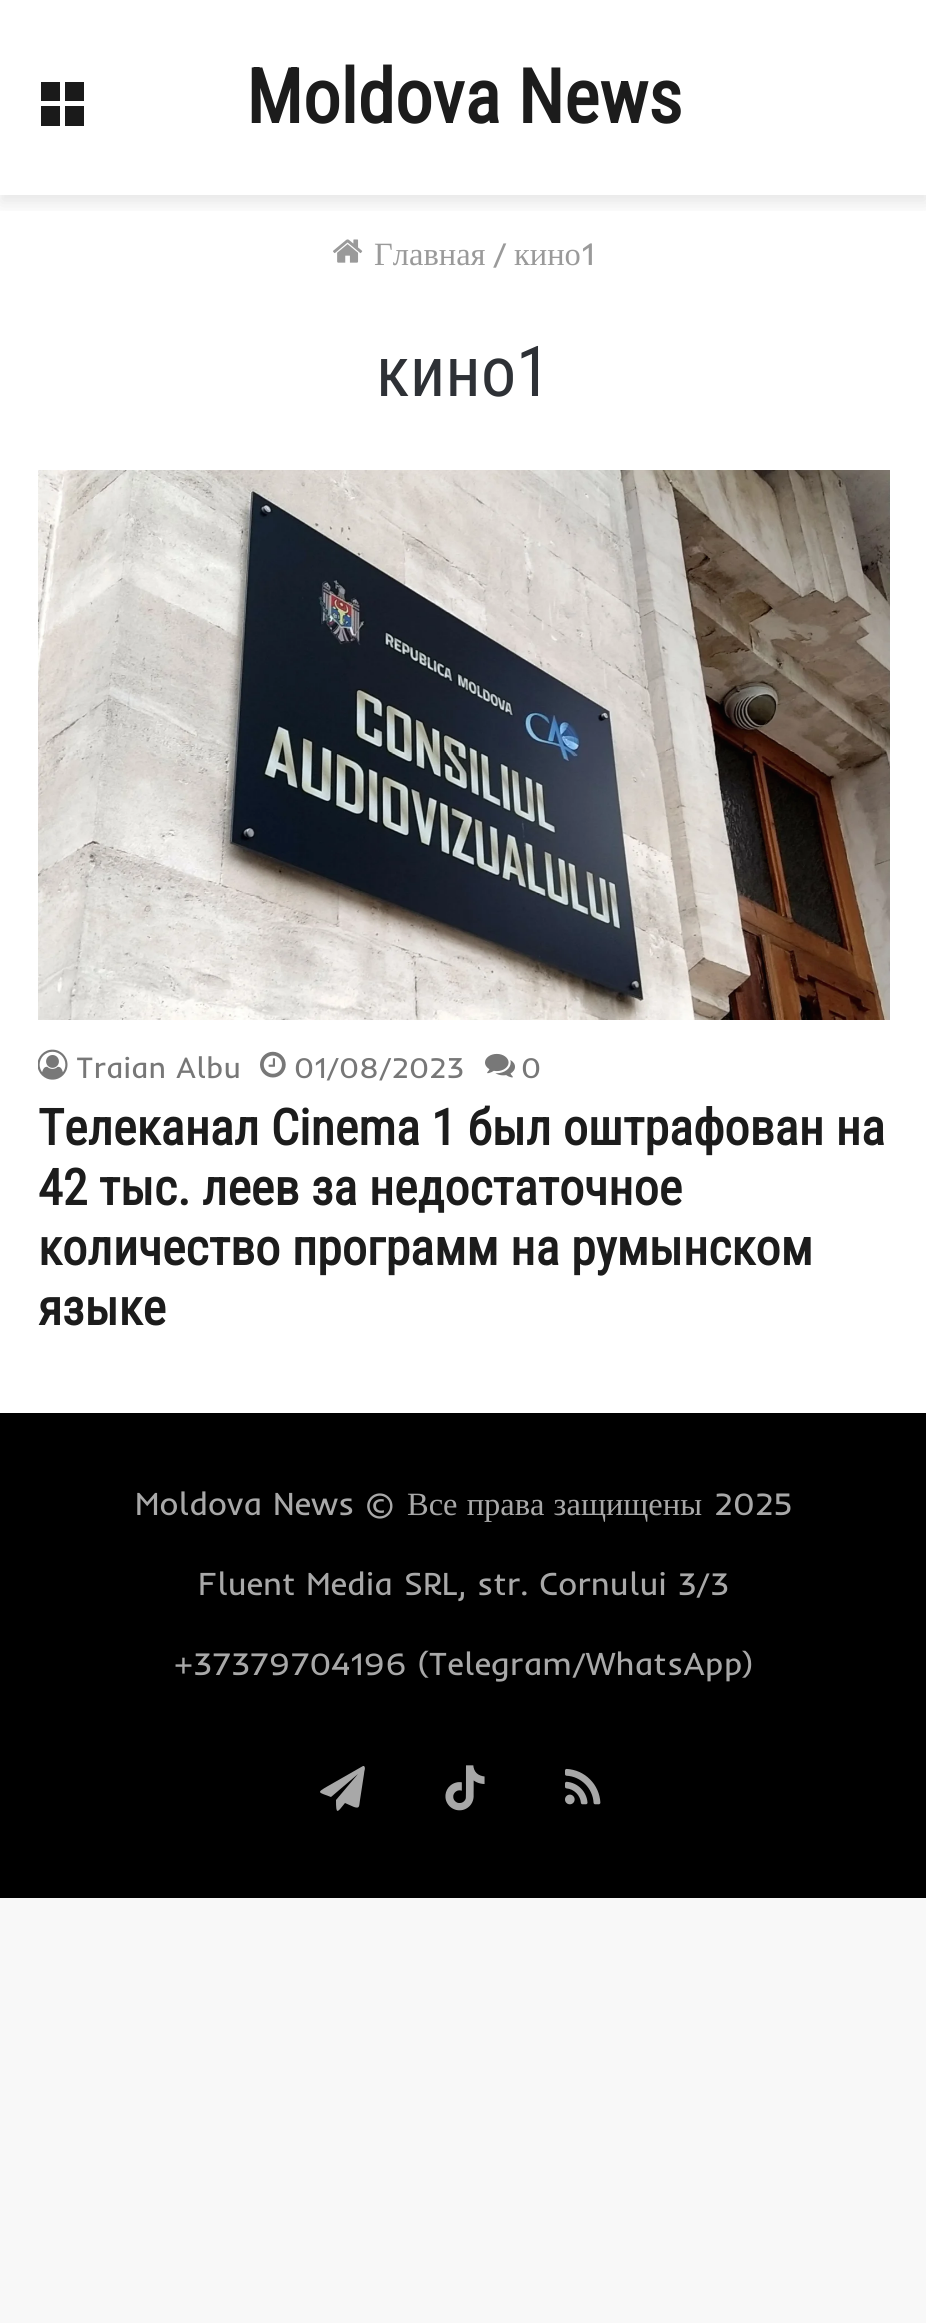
import math
import cairo


def write_spaced(ctx, x, y, s, letter, word):
	ctx.move_to(x, y)
	for ch in s:
		ctx.show_text(ch)
		ctx.rel_move_to(letter + word * (ch == ' '), 0)

def round_path(ctx, x, y, w, h, r):
	ctx.new_sub_path()
	for i, (u, v) in enumerate([(x + w - r, y + h - r), (x + r, y + h - r), (x + r, y + r), (x + w - r, y + r)]):
		ctx.arc(u, v, r, i * math.pi / 2, (i + 1) * math.pi / 2)
	ctx.close_path()

def blur_box(ctx, x, y, w, h, r, blur, alpha):
	ctx.push_group_with_content(cairo.CONTENT_ALPHA)
	ctx.set_operator(cairo.OPERATOR_SOURCE)
	for i in range(15, -16, -2):
		e = blur * i / 6
		if min(w, h) + 2 * e > 0:
			ctx.set_source_rgba(0, 0, 0, alpha * math.erfc((i - 1) / 8.5) / 2)
			round_path(ctx, x - e, y - e, w + 2 * e, h + 2 * e, max(0, min(r + e + blur * .6, min(w, h) / 2 + e)))
			ctx.fill()
	ctx.mask(ctx.pop_group())

def paste(ctx, path, x, y, w, h):
	ctx.save()
	ctx.set_source_surface(cairo.ImageSurface.create_from_png(path), x, y)
	ctx.rectangle(x, y, w, h)
	ctx.fill()
	ctx.restore()

def draw(ctx):
	ctx.set_source_rgb(0.969, 0.969, 0.969)
	ctx.paint()
	ctx.set_source_rgb(1, 1, 1)
	ctx.rectangle(0, 0, 926, 1413)
	ctx.fill()
	ctx.save()
	ctx.rectangle(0, 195, 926, 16)
	ctx.clip()
	ctx.set_source_rgb(0, 0, 0)
	blur_box(ctx, 0, 8, 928, 195, 0, 9, 0.1)
	ctx.restore()
	ctx.set_source_rgb(0.102, 0.102, 0.102)
	ctx.new_path()
	ctx.move_to(41, 101)
	ctx.line_to(60, 101)
	ctx.line_to(60, 82)
	ctx.line_to(41, 82)
	ctx.close_path()
	ctx.move_to(65, 82)
	ctx.line_to(65, 101)
	ctx.line_to(84, 101)
	ctx.line_to(84, 82)
	ctx.close_path()
	ctx.move_to(65, 126)
	ctx.line_to(84, 126)
	ctx.line_to(84, 106)
	ctx.line_to(65, 106)
	ctx.close_path()
	ctx.move_to(41, 126)
	ctx.line_to(60, 126)
	ctx.line_to(60, 106)
	ctx.line_to(41, 106)
	ctx.close_path()
	ctx.fill()
	ctx.select_font_face('Roboto Condensed', cairo.FONT_SLANT_NORMAL, cairo.FONT_WEIGHT_BOLD)
	ctx.set_font_size(75)
	ctx.set_source_rgb(0.11, 0.11, 0.11)
	ctx.move_to(246, 123)
	ctx.show_text('Moldova News')
	paste(ctx, 'media/1.png', 333, 239, 30, 24)
	ctx.select_font_face('Liberation Serif')
	ctx.set_font_size(32.5)
	ctx.set_source_rgb(0.604, 0.604, 0.604)
	ctx.move_to(374, 265)
	ctx.show_text('Главная')
	ctx.select_font_face('Inder')
	ctx.move_to(493, 265)
	ctx.show_text('/')
	ctx.select_font_face('Liberation Serif')
	ctx.move_to(514, 265)
	ctx.show_text('кино')
	ctx.select_font_face('Inder')
	ctx.move_to(581, 265)
	ctx.show_text('1')
	ctx.select_font_face('Roboto Condensed')
	ctx.set_font_size(70)
	ctx.set_source_rgb(0.18, 0.192, 0.212)
	ctx.move_to(376, 396)
	ctx.show_text('кино1')
	paste(ctx, 'media/2.png', 38, 470, 852, 550)
	paste(ctx, 'media/3.png', 38, 1049, 30, 31)
	ctx.select_font_face('Inder')
	ctx.set_font_size(30)
	ctx.set_source_rgb(0.467, 0.467, 0.467)
	ctx.move_to(76, 1078)
	ctx.show_text('Traian Albu')
	paste(ctx, 'media/4.png', 260, 1051, 26, 27)
	ctx.move_to(294, 1078)
	ctx.show_text('01/08/2023')
	paste(ctx, 'media/5.png', 485, 1053, 30, 25)
	ctx.move_to(521, 1078)
	ctx.show_text('0')
	ctx.select_font_face('Roboto Condensed', cairo.FONT_SLANT_NORMAL, cairo.FONT_WEIGHT_BOLD)
	ctx.set_font_size(50)
	ctx.set_source_rgb(0.11, 0.11, 0.11)
	for x, y, s in [
		(38, 1145, 'Телеканал Cinema 1 был оштрафован на'),
		(38, 1205, '42 тыс. леев за недостаточное'),
		(38, 1265, 'количество программ на румынском'),
		(38, 1325, 'языке'),
	]:
		ctx.move_to(x, y)
		ctx.show_text(s)
	ctx.set_source_rgb(0, 0, 0)
	ctx.rectangle(0, 1413, 926, 485)
	ctx.fill()
	ctx.select_font_face('Inder')
	ctx.set_font_size(32.5)
	ctx.set_source_rgb(0.659, 0.659, 0.659)
	ctx.move_to(135, 1515)
	ctx.show_text('Moldova News ©')
	ctx.select_font_face('Liberation Serif')
	write_spaced(ctx, 407, 1515, 'Все права защищены', 0, 1)
	ctx.select_font_face('Inder')
	for x, y, s in [
		(714, 1515, '2025'),
		(198, 1595, 'Fluent Media SRL, str. Cornului 3/3'),
		(174, 1675, '+37379704196 (Telegram/WhatsApp)'),
	]:
		ctx.move_to(x, y)
		ctx.show_text(s)
	ctx.new_path()
	ctx.move_to(364, 1766)
	ctx.curve_to(366, 1768, 364, 1771, 364, 1774)
	ctx.line_to(360, 1800)
	ctx.curve_to(359, 1806, 360, 1809, 354, 1807)
	ctx.line_to(345, 1803)
	ctx.curve_to(337, 1813, 336, 1815, 336, 1800)
	ctx.line_to(358, 1774)
	ctx.line_to(331, 1797)
	ctx.curve_to(318, 1792, 316, 1793, 328, 1786)
	ctx.line_to(363, 1766)
	ctx.close_path()
	ctx.fill()
	paste(ctx, 'media/6.png', 445, 1765, 40, 46)
	paste(ctx, 'media/7.png', 565, 1768, 36, 37)


surface = cairo.ImageSurface(cairo.FORMAT_RGB24, 926, 2323)
ctx = cairo.Context(surface)
options = cairo.FontOptions()
options.set_hint_metrics(cairo.HINT_METRICS_OFF)
options.set_hint_style(cairo.HINT_STYLE_NONE)
ctx.set_font_options(options)
ctx.set_miter_limit(4)
draw(ctx)
surface.write_to_png('image.png')
